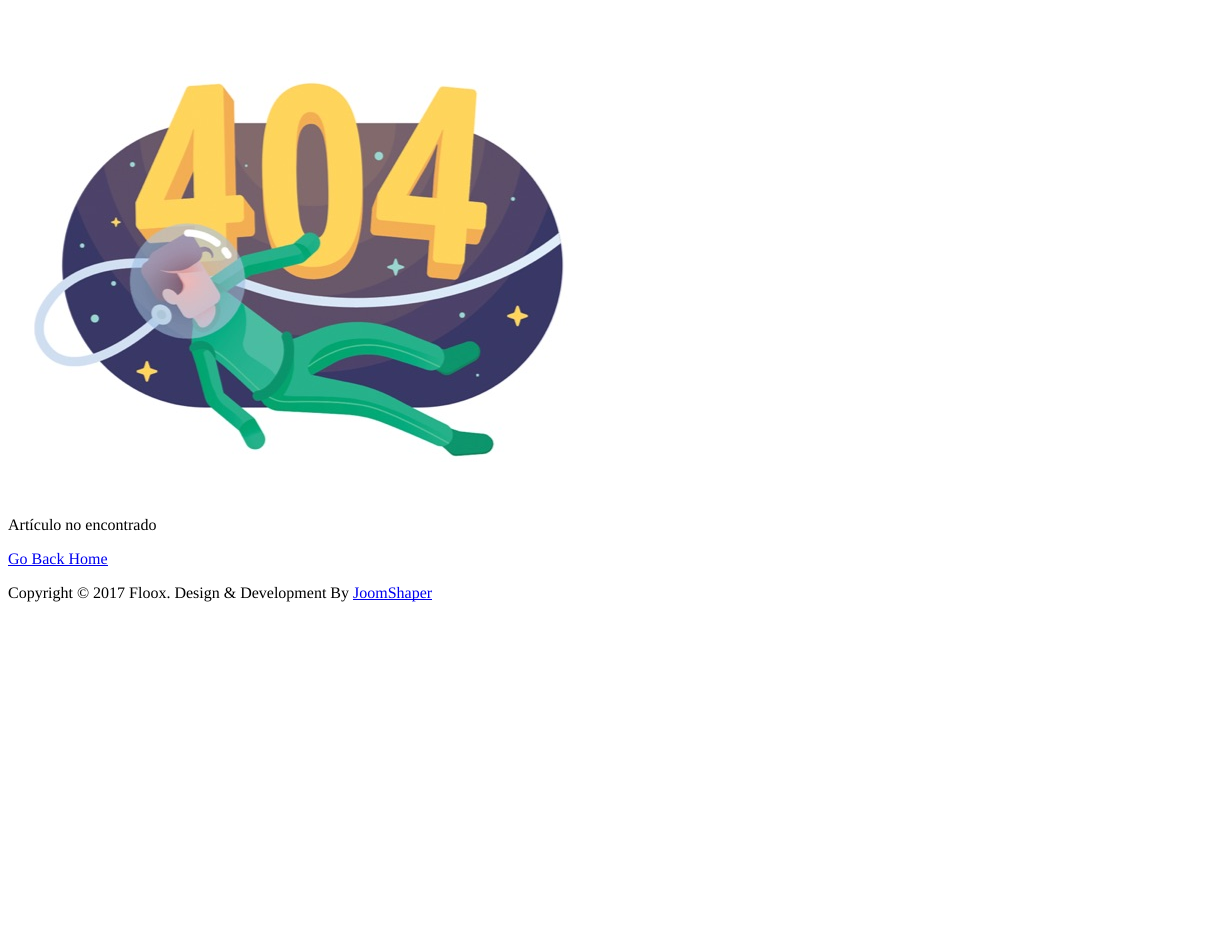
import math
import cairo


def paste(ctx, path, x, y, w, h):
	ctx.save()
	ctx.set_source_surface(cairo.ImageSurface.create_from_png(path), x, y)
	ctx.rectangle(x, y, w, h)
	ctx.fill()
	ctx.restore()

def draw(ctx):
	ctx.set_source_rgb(1, 1, 1)
	ctx.paint()
	paste(ctx, 'media/1.png', 34, 70, 534, 392)
	ctx.select_font_face('Liberation Serif')
	ctx.set_font_size(16)
	ctx.set_source_rgb(0, 0, 0)
	ctx.move_to(8, 530)
	ctx.show_text('Artículo no encontrado')
	ctx.set_source_rgb(0, 0, 0.933)
	ctx.move_to(8, 564)
	ctx.show_text('Go Back Home')
	ctx.rectangle(8, 565, 100, 1)
	ctx.fill()
	ctx.set_source_rgb(0, 0, 0)
	ctx.move_to(8, 598)
	ctx.show_text('Copyright © 2017 Floox. Design & Development By')
	ctx.set_source_rgb(0, 0, 0.933)
	ctx.rectangle(353, 599, 79, 1)
	ctx.fill()
	ctx.move_to(353, 598)
	ctx.show_text('JoomShaper')


surface = cairo.ImageSurface(cairo.FORMAT_RGB24, 1231, 950)
ctx = cairo.Context(surface)
options = cairo.FontOptions()
options.set_hint_metrics(cairo.HINT_METRICS_OFF)
options.set_hint_style(cairo.HINT_STYLE_NONE)
ctx.set_font_options(options)
ctx.set_miter_limit(4)
draw(ctx)
surface.write_to_png('image.png')
